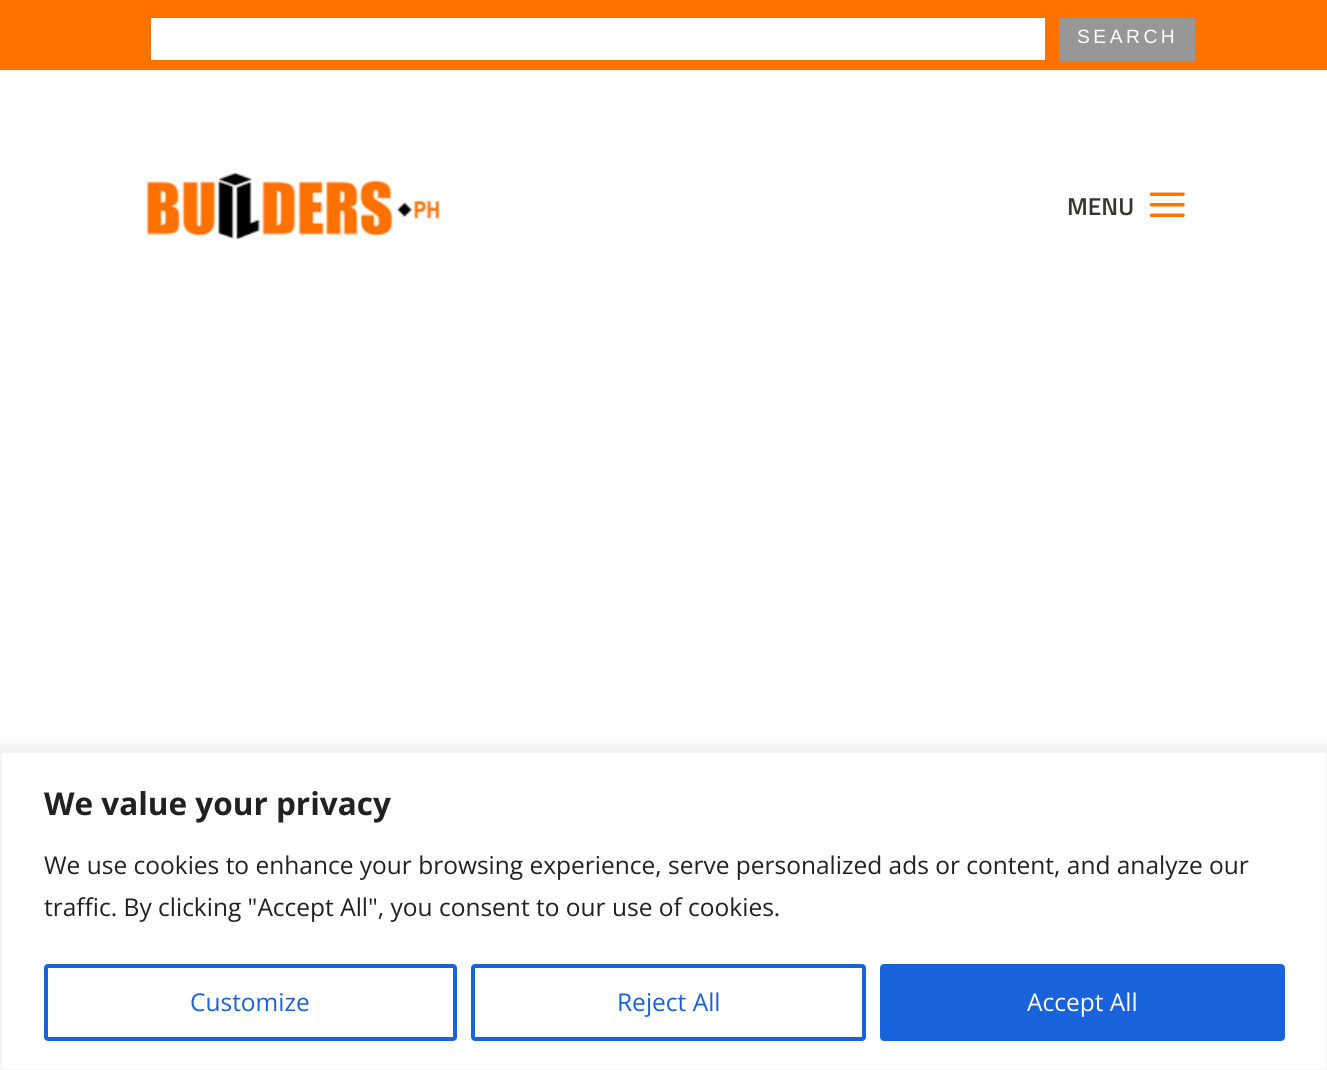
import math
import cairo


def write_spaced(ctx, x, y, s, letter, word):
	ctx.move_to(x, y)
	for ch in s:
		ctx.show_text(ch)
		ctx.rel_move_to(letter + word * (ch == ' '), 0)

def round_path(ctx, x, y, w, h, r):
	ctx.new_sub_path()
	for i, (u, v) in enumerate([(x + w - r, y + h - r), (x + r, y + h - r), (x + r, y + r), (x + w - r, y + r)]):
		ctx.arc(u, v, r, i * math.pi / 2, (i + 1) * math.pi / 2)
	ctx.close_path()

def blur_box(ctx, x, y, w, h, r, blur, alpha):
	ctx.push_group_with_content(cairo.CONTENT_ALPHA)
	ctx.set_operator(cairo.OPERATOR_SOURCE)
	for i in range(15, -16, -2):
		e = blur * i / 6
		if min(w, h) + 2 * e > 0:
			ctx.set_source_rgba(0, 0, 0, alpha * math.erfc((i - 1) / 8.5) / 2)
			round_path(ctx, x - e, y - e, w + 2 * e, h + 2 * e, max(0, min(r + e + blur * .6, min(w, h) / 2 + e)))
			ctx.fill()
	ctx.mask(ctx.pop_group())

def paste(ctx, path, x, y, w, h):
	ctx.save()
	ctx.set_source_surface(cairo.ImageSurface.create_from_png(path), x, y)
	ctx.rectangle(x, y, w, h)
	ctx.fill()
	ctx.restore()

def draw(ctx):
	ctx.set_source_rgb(1, 1, 1)
	ctx.paint()
	ctx.set_source_rgb(1, 0.447, 0)
	ctx.rectangle(0, 0, 1327, 70)
	ctx.fill()
	ctx.set_source_rgb(1, 1, 1)
	ctx.rectangle(151, 18, 894, 42)
	ctx.fill()
	ctx.set_source_rgb(0.592, 0.592, 0.592)
	ctx.rectangle(1059, 18, 136, 43)
	ctx.fill()
	ctx.select_font_face('Liberation Sans')
	ctx.set_font_size(19.25)
	ctx.set_source_rgb(1, 1, 1)
	write_spaced(ctx, 1077, 43, 'SEARCH', 3.5, 0)
	paste(ctx, 'media/1.png', 140, 172, 301, 68)
	ctx.select_font_face('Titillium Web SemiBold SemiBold')
	ctx.set_font_size(24.5)
	ctx.set_source_rgb(0.212, 0.212, 0.2)
	ctx.move_to(1067, 215)
	ctx.show_text('MENU')
	paste(ctx, 'media/2.png', 1149, 192, 36, 25)
	ctx.set_source_rgb(0.675, 0.671, 0.671)
	blur_box(ctx, 0, 749, 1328, 320, 0, 9, 0.3)
	ctx.set_source_rgb(1, 1, 1)
	ctx.rectangle(1, 752, 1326, 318)
	ctx.fill_preserve()
	ctx.set_source_rgb(0.957, 0.957, 0.957)
	ctx.stroke()
	ctx.select_font_face('Open Sans', cairo.FONT_SLANT_NORMAL, cairo.FONT_WEIGHT_BOLD)
	ctx.set_font_size(31.5)
	ctx.set_source_rgb(0.129, 0.129, 0.129)
	ctx.move_to(44, 815)
	ctx.show_text('We value your privacy')
	ctx.select_font_face('Open Sans')
	ctx.set_font_size(24.5)
	ctx.move_to(44, 874)
	ctx.show_text('We use cookies to enhance your browsing experience, serve personalized ads or content, and analyze our')
	ctx.move_to(44, 916)
	ctx.show_text('traffic. By clicking "Accept All", you consent to our use of cookies.')
	round_path(ctx, 46, 966, 409, 73, 2)
	ctx.set_source_rgb(0.094, 0.388, 0.863)
	ctx.set_line_width(4)
	ctx.stroke()
	ctx.move_to(190, 1011)
	ctx.show_text('Customize')
	round_path(ctx, 473, 966, 391, 73, 2)
	ctx.stroke()
	ctx.move_to(617, 1011)
	ctx.show_text('Reject All')
	round_path(ctx, 882, 966, 401, 73, 2)
	ctx.fill_preserve()
	ctx.stroke()
	ctx.set_source_rgb(1, 1, 1)
	ctx.move_to(1027, 1011)
	ctx.show_text('Accept All')


surface = cairo.ImageSurface(cairo.FORMAT_RGB24, 1327, 1070)
ctx = cairo.Context(surface)
options = cairo.FontOptions()
options.set_hint_metrics(cairo.HINT_METRICS_OFF)
options.set_hint_style(cairo.HINT_STYLE_NONE)
ctx.set_font_options(options)
ctx.set_miter_limit(4)
draw(ctx)
surface.write_to_png('image.png')
